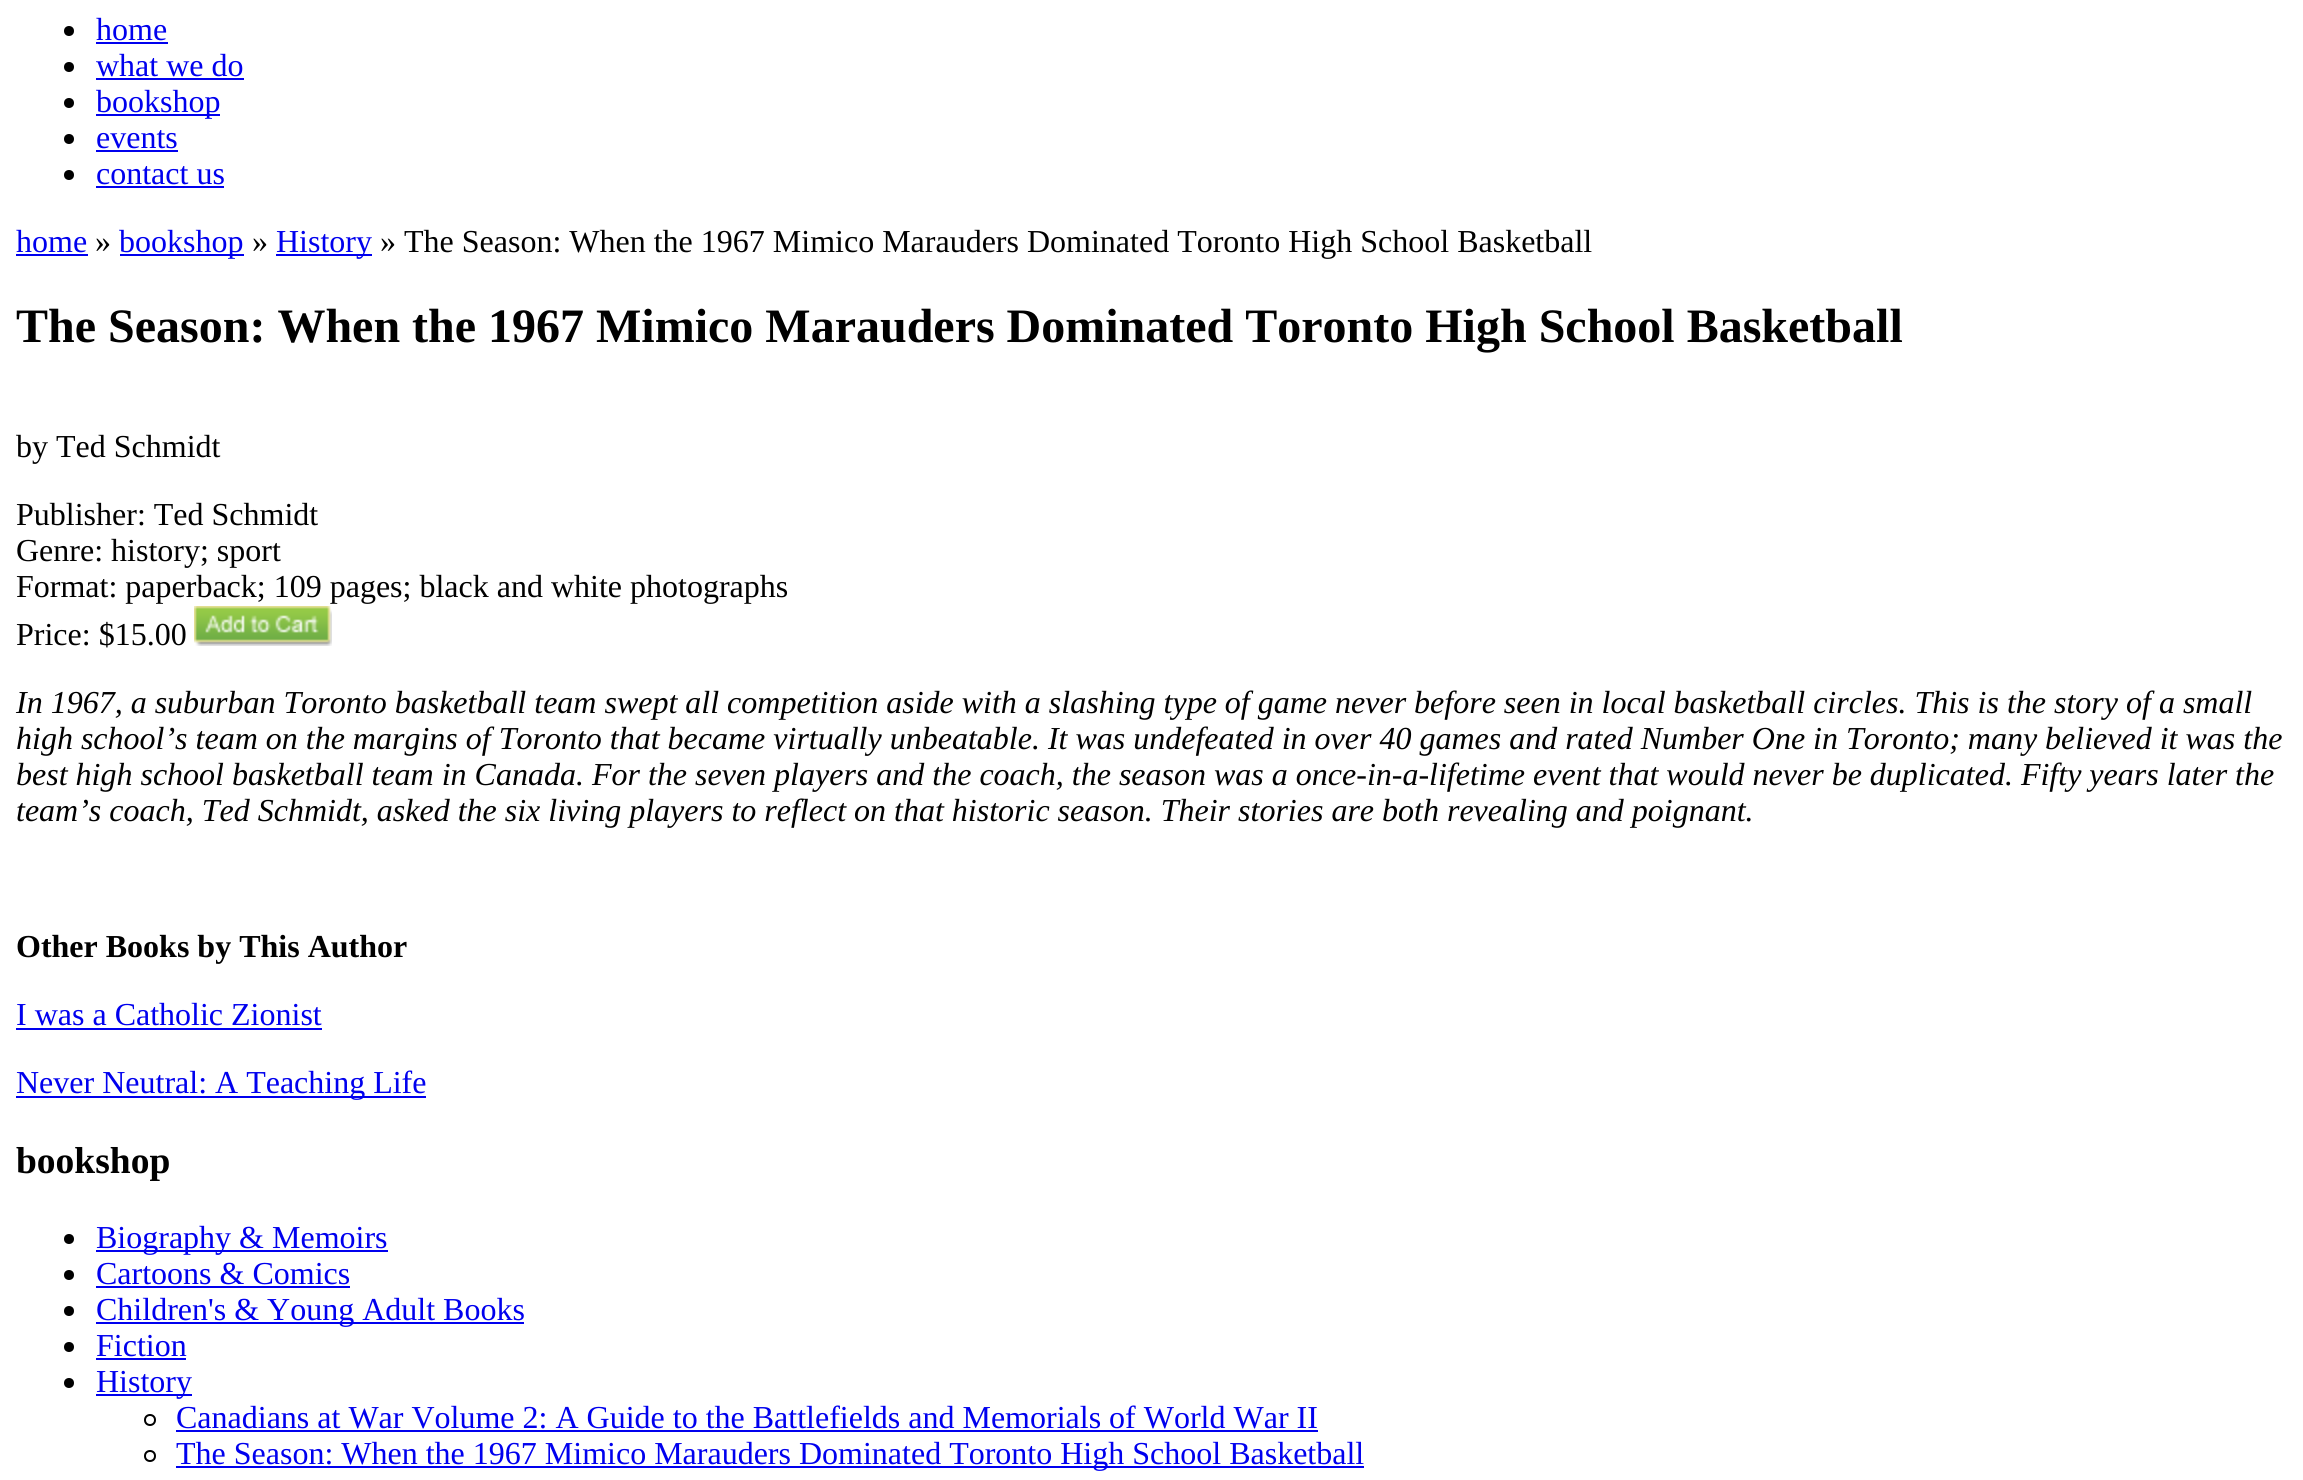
import math
import cairo


def paste(ctx, path, x, y, w, h):
	ctx.save()
	ctx.set_source_surface(cairo.ImageSurface.create_from_png(path), x, y)
	ctx.rectangle(x, y, w, h)
	ctx.fill()
	ctx.restore()

def draw(ctx):
	ctx.set_source_rgb(1, 1, 1)
	ctx.paint()
	ctx.set_source_rgb(0, 0, 0)
	ctx.arc(69, 31, 5, 0, 2 * math.pi)
	ctx.fill()
	ctx.select_font_face('Liberation Serif')
	ctx.set_font_size(32)
	ctx.set_source_rgb(0, 0, 0.933)
	ctx.move_to(96, 40)
	ctx.show_text('home')
	ctx.rectangle(96, 42, 72, 2)
	ctx.fill()
	ctx.set_source_rgb(0, 0, 0)
	ctx.arc(69, 67, 5, 0, 2 * math.pi)
	ctx.fill()
	ctx.set_source_rgb(0, 0, 0.933)
	ctx.move_to(96, 76)
	ctx.show_text('what we do')
	ctx.rectangle(96, 78, 148, 2)
	ctx.fill()
	ctx.set_source_rgb(0, 0, 0)
	ctx.arc(69, 103, 5, 0, 2 * math.pi)
	ctx.fill()
	ctx.set_source_rgb(0, 0, 0.933)
	ctx.rectangle(96, 114, 124, 2)
	ctx.fill()
	ctx.move_to(96, 112)
	ctx.show_text('bookshop')
	ctx.set_source_rgb(0, 0, 0)
	ctx.new_path()
	ctx.arc(69, 139, 5, 0, 2 * math.pi)
	ctx.fill()
	ctx.set_source_rgb(0, 0, 0.933)
	ctx.move_to(96, 148)
	ctx.show_text('events')
	ctx.rectangle(96, 150, 82, 2)
	ctx.fill()
	ctx.set_source_rgb(0, 0, 0)
	ctx.arc(69, 175, 5, 0, 2 * math.pi)
	ctx.fill()
	ctx.set_source_rgb(0, 0, 0.933)
	ctx.move_to(96, 184)
	ctx.show_text('contact us')
	ctx.rectangle(96, 186, 128, 2)
	ctx.fill()
	ctx.move_to(16, 252)
	ctx.show_text('home')
	ctx.rectangle(16, 254, 72, 2)
	ctx.fill()
	ctx.set_source_rgb(0, 0, 0)
	ctx.move_to(95, 252)
	ctx.show_text('»')
	ctx.set_source_rgb(0, 0, 0.933)
	ctx.rectangle(120, 254, 124, 2)
	ctx.fill()
	ctx.move_to(119, 252)
	ctx.show_text('bookshop')
	ctx.set_source_rgb(0, 0, 0)
	ctx.move_to(252, 252)
	ctx.show_text('»')
	ctx.set_source_rgb(0, 0, 0.933)
	ctx.rectangle(276, 254, 96, 2)
	ctx.fill()
	ctx.move_to(276, 252)
	ctx.show_text('History')
	ctx.set_source_rgb(0, 0, 0)
	ctx.move_to(380, 252)
	ctx.show_text('» The Season: When the 1967 Mimico Marauders Dominated Toronto High School Basketball')
	ctx.select_font_face('Liberation Serif', cairo.FONT_SLANT_NORMAL, cairo.FONT_WEIGHT_BOLD)
	ctx.set_font_size(48)
	ctx.move_to(16, 342)
	ctx.show_text('The Season: When the 1967 Mimico Marauders Dominated Toronto High School Basketball')
	ctx.select_font_face('Liberation Serif')
	ctx.set_font_size(32)
	for x, y, s in [
		(16, 457, 'by Ted Schmidt'),
		(16, 525, 'Publisher: Ted Schmidt'),
		(16, 561, 'Genre: history; sport'),
		(16, 597, 'Format: paperback; 109 pages; black and white photographs'),
		(16, 645, 'Price: $15.00'),
	]:
		ctx.move_to(x, y)
		ctx.show_text(s)
	paste(ctx, 'media/1.png', 194, 606, 138, 40)
	ctx.select_font_face('Liberation Serif', cairo.FONT_SLANT_ITALIC)
	for x, y, s in [
		(16, 713, 'In 1967, a suburban Toronto basketball team swept all competition aside with a slashing type of game never before seen in local basketball circles. This is the story of a small'),
		(16, 749, 'high school’s team on the margins of Toronto that became virtually unbeatable. It was undefeated in over 40 games and rated Number One in Toronto; many believed it was the'),
		(16, 785, 'best high school basketball team in Canada. For the seven players and the coach, the season was a once-in-a-lifetime event that would never be duplicated. Fifty years later the'),
		(16, 821, 'team’s coach, Ted Schmidt, asked the six living players to reflect on that historic season. Their stories are both revealing and poignant.'),
	]:
		ctx.move_to(x, y)
		ctx.show_text(s)
	ctx.select_font_face('Liberation Serif', cairo.FONT_SLANT_NORMAL, cairo.FONT_WEIGHT_BOLD)
	ctx.move_to(16, 957)
	ctx.show_text('Other Books by This Author')
	ctx.select_font_face('Liberation Serif')
	ctx.set_source_rgb(0, 0, 0.933)
	ctx.move_to(16, 1025)
	ctx.show_text('I was a Catholic Zionist')
	ctx.rectangle(16, 1028, 306, 2)
	ctx.fill()
	ctx.rectangle(16, 1096, 410, 2)
	ctx.fill()
	ctx.move_to(16, 1093)
	ctx.show_text('Never Neutral: A Teaching Life')
	ctx.select_font_face('Liberation Serif', cairo.FONT_SLANT_NORMAL, cairo.FONT_WEIGHT_BOLD)
	ctx.set_font_size(37.5)
	ctx.set_source_rgb(0, 0, 0)
	ctx.move_to(16, 1173)
	ctx.show_text('bookshop')
	ctx.new_path()
	ctx.arc(69, 1239, 5, 0, 2 * math.pi)
	ctx.fill()
	ctx.set_source_rgb(0, 0, 0.933)
	ctx.rectangle(96, 1250, 292, 2)
	ctx.fill()
	ctx.select_font_face('Liberation Serif')
	ctx.set_font_size(32)
	ctx.move_to(96, 1248)
	ctx.show_text('Biography & Memoirs')
	ctx.set_source_rgb(0, 0, 0)
	ctx.new_path()
	ctx.arc(69, 1275, 5, 0, 2 * math.pi)
	ctx.fill()
	ctx.set_source_rgb(0, 0, 0.933)
	ctx.move_to(96, 1284)
	ctx.show_text('Cartoons & Comics')
	ctx.rectangle(96, 1286, 254, 2)
	ctx.fill()
	ctx.set_source_rgb(0, 0, 0)
	ctx.arc(69, 1311, 5, 0, 2 * math.pi)
	ctx.fill()
	ctx.set_source_rgb(0, 0, 0.933)
	ctx.rectangle(96, 1322, 428, 2)
	ctx.fill()
	ctx.move_to(96, 1320)
	ctx.show_text('Children\'s & Young Adult Books')
	ctx.set_source_rgb(0, 0, 0)
	ctx.new_path()
	ctx.arc(69, 1347, 5, 0, 2 * math.pi)
	ctx.fill()
	ctx.set_source_rgb(0, 0, 0.933)
	ctx.move_to(96, 1356)
	ctx.show_text('Fiction')
	ctx.rectangle(96, 1358, 90, 2)
	ctx.fill()
	ctx.set_source_rgb(0, 0, 0)
	ctx.arc(69, 1383, 5, 0, 2 * math.pi)
	ctx.fill()
	ctx.set_source_rgb(0, 0, 0.933)
	ctx.rectangle(96, 1394, 96, 2)
	ctx.fill()
	ctx.move_to(96, 1392)
	ctx.show_text('History')
	ctx.new_path()
	ctx.arc(150, 1420, 5, 0, 2 * math.pi)
	ctx.set_source_rgb(0, 0, 0)
	ctx.stroke()
	ctx.set_source_rgb(0, 0, 0.933)
	ctx.move_to(176, 1428)
	ctx.show_text('Canadians at War Volume 2: A Guide to the Battlefields and Memorials of World War II')
	ctx.rectangle(176, 1430, 1142, 2)
	ctx.fill()
	ctx.arc(150, 1456, 5, 0, 2 * math.pi)
	ctx.set_source_rgb(0, 0, 0)
	ctx.stroke()
	ctx.set_source_rgb(0, 0, 0.933)
	ctx.rectangle(176, 1466, 1188, 2)
	ctx.fill()
	ctx.move_to(176, 1464)
	ctx.show_text('The Season: When the 1967 Mimico Marauders Dominated Toronto High School Basketball')


surface = cairo.ImageSurface(cairo.FORMAT_RGB24, 2303, 1480)
ctx = cairo.Context(surface)
options = cairo.FontOptions()
options.set_hint_metrics(cairo.HINT_METRICS_OFF)
options.set_hint_style(cairo.HINT_STYLE_NONE)
ctx.set_font_options(options)
ctx.set_miter_limit(4)
draw(ctx)
surface.write_to_png('image.png')
